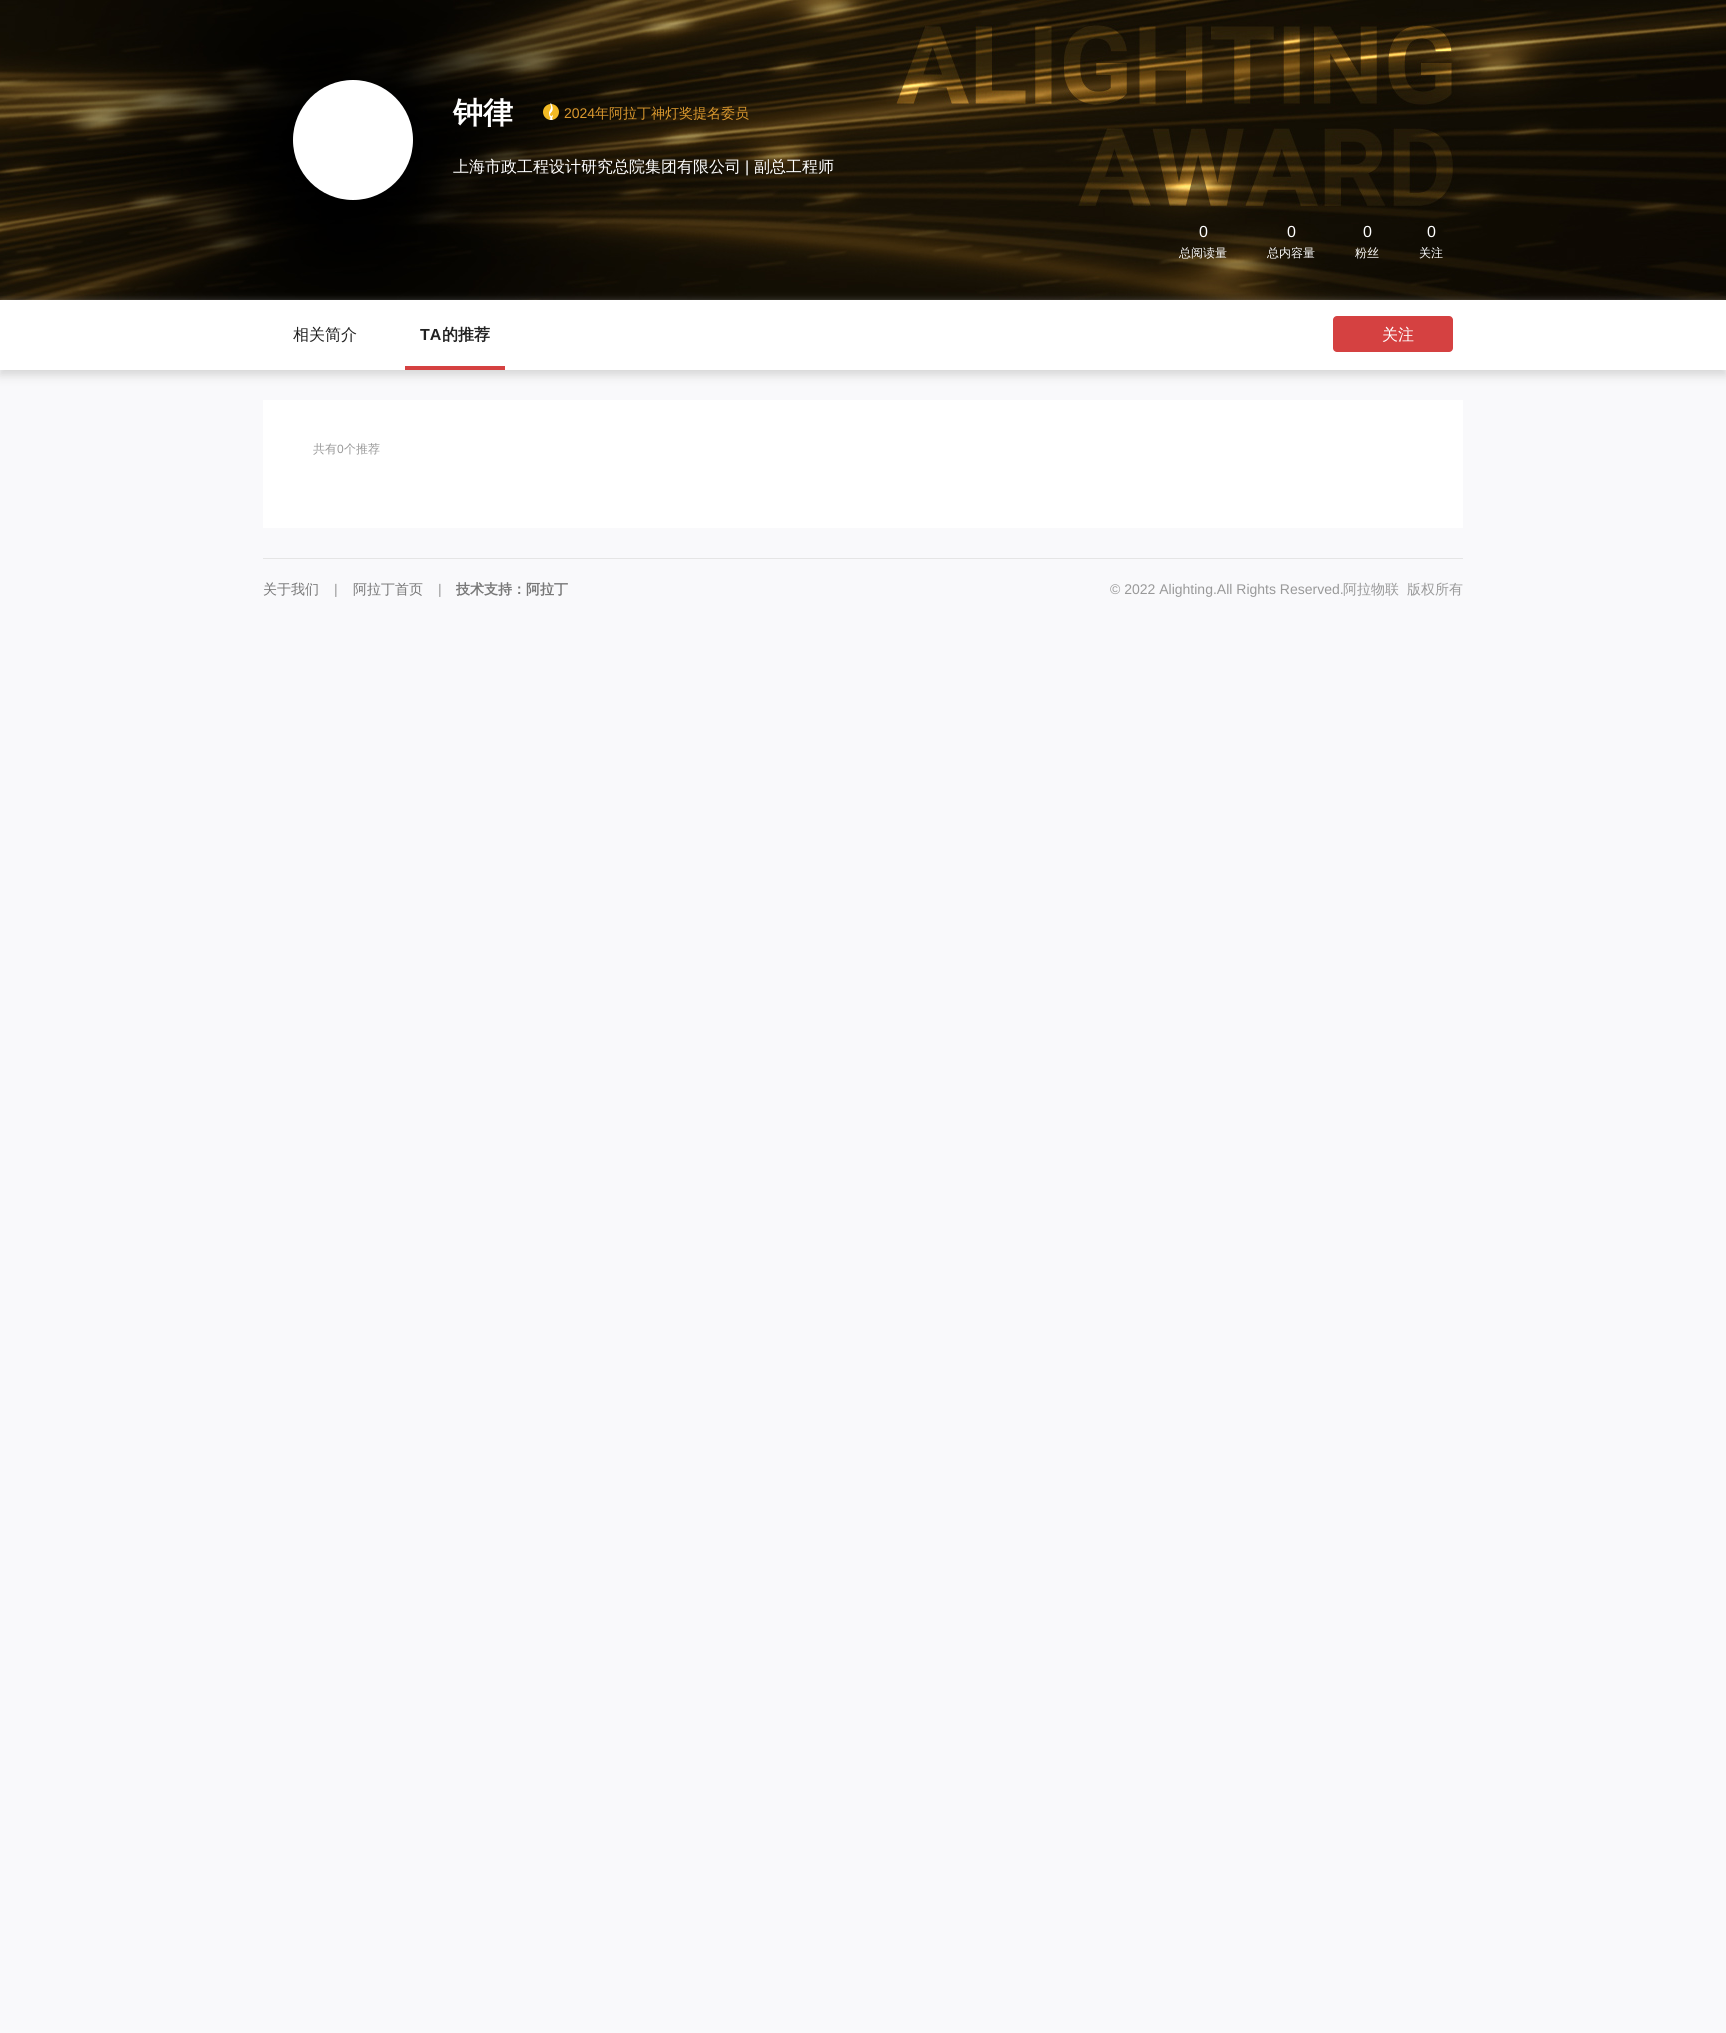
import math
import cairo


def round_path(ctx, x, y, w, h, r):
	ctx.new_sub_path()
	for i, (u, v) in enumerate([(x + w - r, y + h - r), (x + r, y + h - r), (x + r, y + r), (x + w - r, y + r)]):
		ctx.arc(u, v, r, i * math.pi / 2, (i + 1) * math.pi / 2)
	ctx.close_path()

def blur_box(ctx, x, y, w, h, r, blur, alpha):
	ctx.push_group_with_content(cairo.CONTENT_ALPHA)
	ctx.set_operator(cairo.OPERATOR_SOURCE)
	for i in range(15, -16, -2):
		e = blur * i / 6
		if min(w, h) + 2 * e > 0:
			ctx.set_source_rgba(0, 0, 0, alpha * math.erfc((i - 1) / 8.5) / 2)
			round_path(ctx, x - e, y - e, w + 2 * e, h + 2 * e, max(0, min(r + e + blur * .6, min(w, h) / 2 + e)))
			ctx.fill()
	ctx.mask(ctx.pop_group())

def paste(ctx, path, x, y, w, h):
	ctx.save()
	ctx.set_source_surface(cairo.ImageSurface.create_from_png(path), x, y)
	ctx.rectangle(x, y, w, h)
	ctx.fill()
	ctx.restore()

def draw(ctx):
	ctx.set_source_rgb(0.973, 0.973, 0.984)
	ctx.paint()
	paste(ctx, 'media/1.png', 0, 0, 1726, 300)
	ctx.set_source_rgb(1, 1, 1)
	ctx.arc(353, 140, 60, 0, 2 * math.pi)
	ctx.fill()
	ctx.select_font_face('WenQuanYi Zen Hei', cairo.FONT_SLANT_NORMAL, cairo.FONT_WEIGHT_BOLD)
	ctx.set_font_size(30)
	ctx.move_to(453, 123)
	ctx.show_text('钟律')
	paste(ctx, 'media/2.png', 543, 103, 16, 17)
	ctx.select_font_face('Liberation Sans')
	ctx.set_font_size(14)
	ctx.set_source_rgb(0.855, 0.596, 0.18)
	ctx.move_to(564, 118)
	ctx.show_text('2024')
	ctx.select_font_face('WenQuanYi Zen Hei Medium')
	ctx.move_to(595, 118)
	ctx.show_text('年阿拉丁神灯奖提名委员')
	ctx.set_font_size(16)
	ctx.set_source_rgb(1, 1, 1)
	ctx.move_to(453, 172)
	ctx.show_text('上海市政工程设计研究总院集团有限公司')
	ctx.select_font_face('Liberation Sans')
	ctx.move_to(745, 172)
	ctx.show_text('|')
	ctx.select_font_face('WenQuanYi Zen Hei Medium')
	ctx.move_to(754, 172)
	ctx.show_text('副总工程师')
	ctx.select_font_face('Liberation Sans')
	ctx.move_to(1199, 237)
	ctx.show_text('0')
	ctx.select_font_face('WenQuanYi Zen Hei Medium')
	ctx.set_font_size(12)
	ctx.move_to(1179, 257)
	ctx.show_text('总阅读量')
	ctx.select_font_face('Liberation Sans')
	ctx.set_font_size(16)
	ctx.move_to(1287, 237)
	ctx.show_text('0')
	ctx.select_font_face('WenQuanYi Zen Hei Medium')
	ctx.set_font_size(12)
	ctx.move_to(1267, 257)
	ctx.show_text('总内容量')
	ctx.select_font_face('Liberation Sans')
	ctx.set_font_size(16)
	ctx.move_to(1363, 237)
	ctx.show_text('0')
	ctx.select_font_face('WenQuanYi Zen Hei Medium')
	ctx.set_font_size(12)
	ctx.move_to(1355, 257)
	ctx.show_text('粉丝')
	ctx.select_font_face('Liberation Sans')
	ctx.set_font_size(16)
	ctx.move_to(1427, 237)
	ctx.show_text('0')
	ctx.select_font_face('WenQuanYi Zen Hei Medium')
	ctx.set_font_size(12)
	ctx.move_to(1419, 257)
	ctx.show_text('关注')
	ctx.set_source_rgb(0.835, 0.835, 0.835)
	blur_box(ctx, 0, 305, 1726, 70, 0, 5, 1)
	ctx.set_source_rgb(1, 1, 1)
	ctx.rectangle(0, 300, 1726, 70)
	ctx.fill()
	ctx.set_font_size(16)
	ctx.set_source_rgb(0.133, 0.133, 0.133)
	ctx.move_to(293, 340)
	ctx.show_text('相关简介')
	ctx.select_font_face('Liberation Sans', cairo.FONT_SLANT_NORMAL, cairo.FONT_WEIGHT_BOLD)
	ctx.move_to(420, 340)
	ctx.show_text('TA')
	ctx.select_font_face('WenQuanYi Zen Hei', cairo.FONT_SLANT_NORMAL, cairo.FONT_WEIGHT_BOLD)
	ctx.move_to(442, 340)
	ctx.show_text('的推荐')
	ctx.set_source_rgb(0.835, 0.255, 0.255)
	ctx.rectangle(405, 366, 100, 4)
	ctx.fill()
	round_path(ctx, 1333, 316, 120, 36, 4)
	ctx.fill()
	ctx.select_font_face('WenQuanYi Zen Hei Medium')
	ctx.set_source_rgb(1, 1, 1)
	ctx.move_to(1382, 340)
	ctx.show_text('关注')
	ctx.rectangle(263, 400, 1200, 128)
	ctx.fill()
	ctx.set_font_size(12)
	ctx.set_source_rgb(0.6, 0.6, 0.6)
	ctx.move_to(313, 453)
	ctx.show_text('共有')
	ctx.select_font_face('Liberation Sans')
	ctx.move_to(337, 453)
	ctx.show_text('0')
	ctx.select_font_face('WenQuanYi Zen Hei Medium')
	ctx.move_to(344, 453)
	ctx.show_text('个推荐')
	ctx.set_source_rgb(0.898, 0.898, 0.898)
	ctx.rectangle(263, 558, 1200, 1)
	ctx.fill()
	ctx.set_font_size(14)
	ctx.set_source_rgb(0.467, 0.467, 0.467)
	ctx.move_to(263, 594)
	ctx.show_text('关于我们')
	ctx.select_font_face('Liberation Sans')
	ctx.set_source_rgb(0.6, 0.6, 0.6)
	ctx.move_to(334, 594)
	ctx.show_text('|')
	ctx.select_font_face('WenQuanYi Zen Hei Medium')
	ctx.set_source_rgb(0.467, 0.467, 0.467)
	ctx.move_to(353, 594)
	ctx.show_text('阿拉丁首页')
	ctx.select_font_face('Liberation Sans')
	ctx.set_source_rgb(0.6, 0.6, 0.6)
	ctx.move_to(438, 594)
	ctx.show_text('|')
	ctx.select_font_face('WenQuanYi Zen Hei', cairo.FONT_SLANT_NORMAL, cairo.FONT_WEIGHT_BOLD)
	ctx.set_source_rgb(0.467, 0.467, 0.467)
	ctx.move_to(456, 594)
	ctx.show_text('技术支持：阿拉丁')
	ctx.select_font_face('Liberation Sans')
	ctx.set_source_rgb(0.6, 0.6, 0.6)
	ctx.move_to(1110, 594)
	ctx.show_text('© 2022 Alighting.All Rights Reserved.')
	ctx.select_font_face('WenQuanYi Zen Hei Medium')
	ctx.move_to(1343, 594)
	ctx.show_text('阿拉物联')
	ctx.move_to(1407, 594)
	ctx.show_text('版权所有')


surface = cairo.ImageSurface(cairo.FORMAT_RGB24, 1726, 2033)
ctx = cairo.Context(surface)
options = cairo.FontOptions()
options.set_hint_metrics(cairo.HINT_METRICS_OFF)
options.set_hint_style(cairo.HINT_STYLE_NONE)
ctx.set_font_options(options)
ctx.set_miter_limit(4)
draw(ctx)
surface.write_to_png('image.png')
